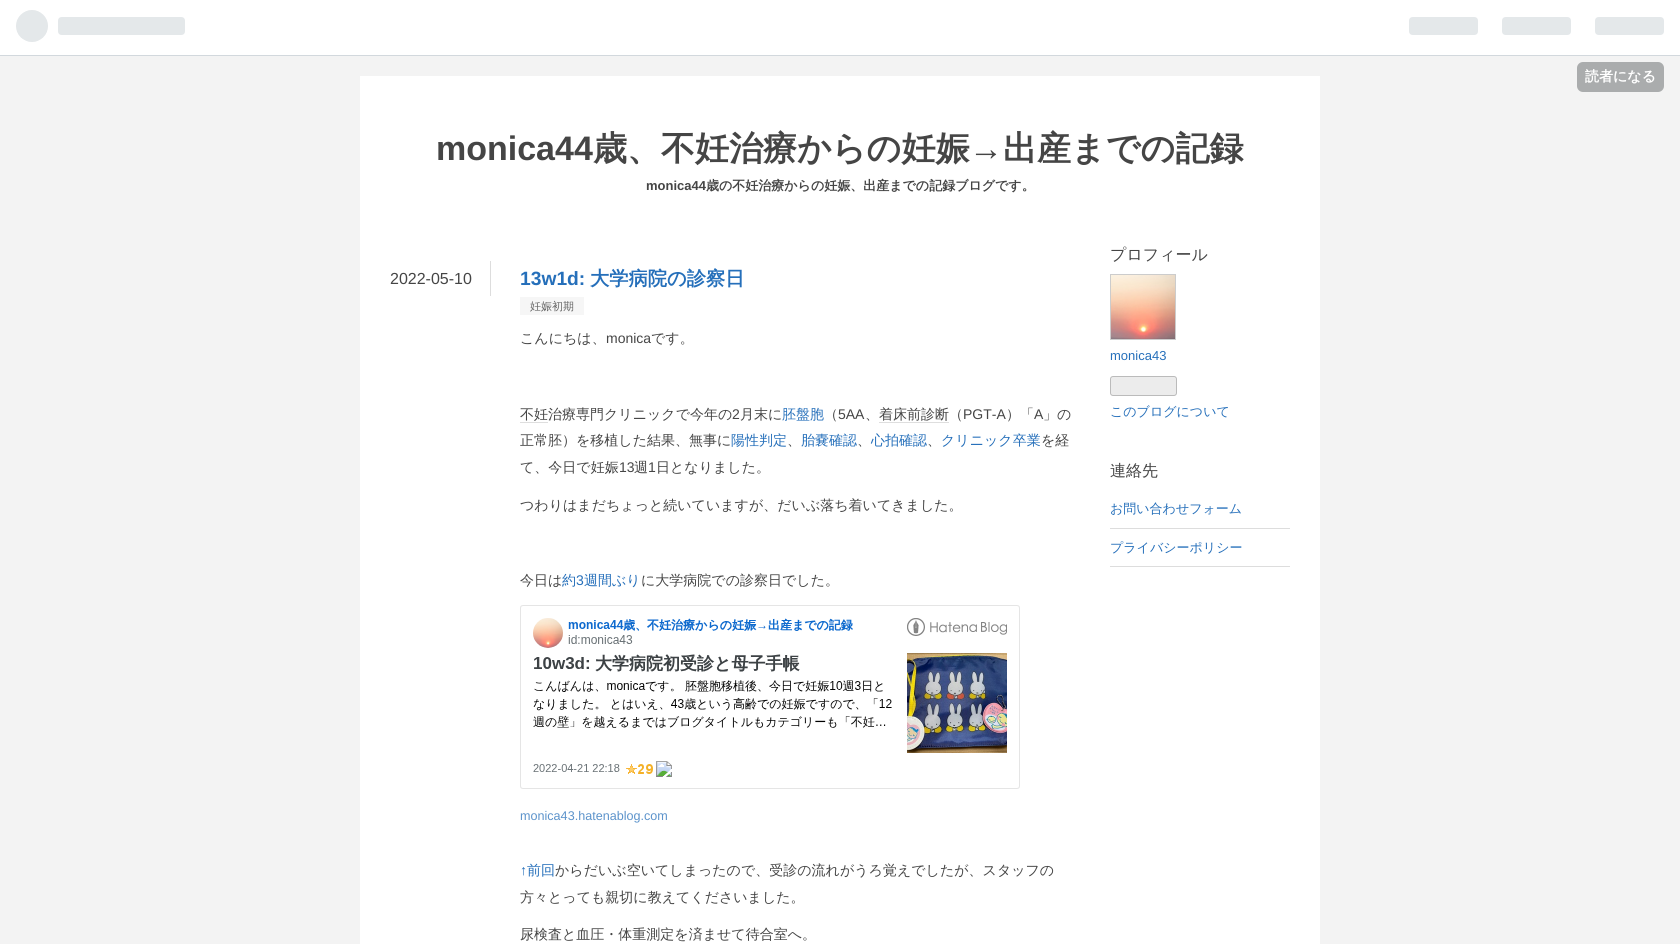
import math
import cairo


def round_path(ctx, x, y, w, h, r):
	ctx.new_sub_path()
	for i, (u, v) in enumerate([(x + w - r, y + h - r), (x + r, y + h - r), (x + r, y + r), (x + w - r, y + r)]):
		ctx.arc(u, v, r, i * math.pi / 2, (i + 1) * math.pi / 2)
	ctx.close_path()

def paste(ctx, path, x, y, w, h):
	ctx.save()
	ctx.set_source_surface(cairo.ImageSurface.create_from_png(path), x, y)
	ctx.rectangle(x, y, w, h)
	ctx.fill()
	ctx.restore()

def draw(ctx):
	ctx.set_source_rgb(0.953, 0.953, 0.953)
	ctx.paint()
	ctx.set_source_rgb(1, 1, 1)
	ctx.rectangle(0, 0, 1680, 55)
	ctx.fill()
	ctx.set_source_rgb(0.824, 0.847, 0.867)
	ctx.rectangle(0, 55, 1680, 1)
	ctx.fill()
	paste(ctx, 'media/1.png', 16, 10, 169, 32)
	paste(ctx, 'media/2.png', 1409, 17, 255, 18)
	ctx.set_source_rgb(0.667, 0.675, 0.678)
	round_path(ctx, 1577, 62, 87, 30, 6)
	ctx.fill()
	ctx.select_font_face('WenQuanYi Zen Hei', cairo.FONT_SLANT_NORMAL, cairo.FONT_WEIGHT_BOLD)
	ctx.set_font_size(14)
	ctx.set_source_rgb(1, 1, 1)
	ctx.move_to(1585, 81)
	ctx.show_text('読者になる')
	ctx.rectangle(360, 76, 960, 868)
	ctx.fill()
	ctx.select_font_face('Liberation Sans', cairo.FONT_SLANT_NORMAL, cairo.FONT_WEIGHT_BOLD)
	ctx.set_font_size(34)
	ctx.set_source_rgb(0.271, 0.271, 0.271)
	ctx.move_to(436, 160)
	ctx.show_text('monica44')
	ctx.select_font_face('WenQuanYi Zen Hei', cairo.FONT_SLANT_NORMAL, cairo.FONT_WEIGHT_BOLD)
	ctx.move_to(593, 160)
	ctx.show_text('歳、不妊治療からの妊娠')
	ctx.select_font_face('Liberation Sans', cairo.FONT_SLANT_NORMAL, cairo.FONT_WEIGHT_BOLD)
	ctx.move_to(969, 160)
	ctx.show_text('→')
	ctx.select_font_face('WenQuanYi Zen Hei', cairo.FONT_SLANT_NORMAL, cairo.FONT_WEIGHT_BOLD)
	ctx.move_to(1003, 160)
	ctx.show_text('出産までの記録')
	ctx.select_font_face('Liberation Sans', cairo.FONT_SLANT_NORMAL, cairo.FONT_WEIGHT_BOLD)
	ctx.set_font_size(13)
	ctx.move_to(646, 190)
	ctx.show_text('monica44')
	ctx.select_font_face('WenQuanYi Zen Hei', cairo.FONT_SLANT_NORMAL, cairo.FONT_WEIGHT_BOLD)
	ctx.move_to(706, 190)
	ctx.show_text('歳の不妊治療からの妊娠、出産までの記録ブログです。')
	ctx.set_source_rgb(0.867, 0.867, 0.867)
	ctx.rectangle(490, 261, 1, 35)
	ctx.fill()
	ctx.select_font_face('Liberation Sans')
	ctx.set_font_size(16)
	ctx.set_source_rgb(0.271, 0.271, 0.271)
	ctx.move_to(390, 284)
	ctx.show_text('2022-05-10')
	ctx.select_font_face('Liberation Sans', cairo.FONT_SLANT_NORMAL, cairo.FONT_WEIGHT_BOLD)
	ctx.set_font_size(19.25)
	ctx.set_source_rgb(0.145, 0.435, 0.729)
	ctx.move_to(520, 285)
	ctx.show_text('13w1d:')
	ctx.select_font_face('WenQuanYi Zen Hei', cairo.FONT_SLANT_NORMAL, cairo.FONT_WEIGHT_BOLD)
	ctx.move_to(590, 285)
	ctx.show_text('大学病院の診察日')
	ctx.set_source_rgb(0.961, 0.961, 0.961)
	ctx.rectangle(520, 297, 64, 18)
	ctx.fill()
	ctx.select_font_face('WenQuanYi Zen Hei Medium')
	ctx.set_font_size(11)
	ctx.set_source_rgb(0.4, 0.4, 0.4)
	ctx.move_to(530, 310)
	ctx.show_text('妊娠初期')
	ctx.set_font_size(14)
	ctx.set_source_rgb(0.271, 0.271, 0.271)
	ctx.move_to(520, 343)
	ctx.show_text('こんにちは、')
	ctx.select_font_face('Liberation Sans')
	ctx.move_to(606, 343)
	ctx.show_text('monica')
	ctx.select_font_face('WenQuanYi Zen Hei Medium')
	ctx.move_to(651, 343)
	ctx.show_text('です。')
	ctx.move_to(520, 419)
	ctx.show_text('不妊治療専門クリニックで今年の')
	ctx.set_source_rgb(0.871, 0.871, 0.871)
	ctx.rectangle(520, 422, 28, 1)
	ctx.fill()
	ctx.select_font_face('Liberation Sans')
	ctx.set_source_rgb(0.271, 0.271, 0.271)
	ctx.move_to(732, 419)
	ctx.show_text('2')
	ctx.select_font_face('WenQuanYi Zen Hei Medium')
	ctx.move_to(740, 419)
	ctx.show_text('月末に')
	ctx.set_source_rgb(0.145, 0.435, 0.729)
	ctx.move_to(782, 419)
	ctx.show_text('胚盤胞')
	ctx.set_source_rgb(0.271, 0.271, 0.271)
	ctx.move_to(824, 419)
	ctx.show_text('（')
	ctx.select_font_face('Liberation Sans')
	ctx.move_to(838, 419)
	ctx.show_text('5AA')
	ctx.select_font_face('WenQuanYi Zen Hei Medium')
	ctx.move_to(865, 419)
	ctx.show_text('、着床前診断（')
	ctx.select_font_face('Liberation Sans')
	ctx.move_to(963, 419)
	ctx.show_text('PGT-A')
	ctx.select_font_face('WenQuanYi Zen Hei Medium')
	ctx.move_to(1006, 419)
	ctx.show_text('）「')
	ctx.select_font_face('Liberation Sans')
	ctx.move_to(1034, 419)
	ctx.show_text('A')
	ctx.select_font_face('WenQuanYi Zen Hei Medium')
	ctx.move_to(1043, 419)
	ctx.show_text('」の')
	ctx.set_source_rgb(0.871, 0.871, 0.871)
	ctx.rectangle(879, 422, 70, 1)
	ctx.fill()
	ctx.set_source_rgb(0.271, 0.271, 0.271)
	ctx.move_to(520, 445)
	ctx.show_text('正常胚）を移植した結果、無事に')
	ctx.set_source_rgb(0.145, 0.435, 0.729)
	ctx.move_to(731, 445)
	ctx.show_text('陽性判定')
	ctx.set_source_rgb(0.271, 0.271, 0.271)
	ctx.move_to(787, 445)
	ctx.show_text('、')
	ctx.set_source_rgb(0.145, 0.435, 0.729)
	ctx.move_to(801, 445)
	ctx.show_text('胎嚢確認')
	ctx.set_source_rgb(0.271, 0.271, 0.271)
	ctx.move_to(857, 445)
	ctx.show_text('、')
	ctx.set_source_rgb(0.145, 0.435, 0.729)
	ctx.move_to(871, 445)
	ctx.show_text('心拍確認')
	ctx.set_source_rgb(0.271, 0.271, 0.271)
	ctx.move_to(927, 445)
	ctx.show_text('、')
	ctx.set_source_rgb(0.145, 0.435, 0.729)
	ctx.move_to(941, 445)
	ctx.show_text('クリニック卒業')
	ctx.set_source_rgb(0.271, 0.271, 0.271)
	ctx.move_to(1041, 445)
	ctx.show_text('を経')
	ctx.move_to(520, 472)
	ctx.show_text('て、今日で妊娠')
	ctx.select_font_face('Liberation Sans')
	ctx.move_to(619, 472)
	ctx.show_text('13')
	ctx.select_font_face('WenQuanYi Zen Hei Medium')
	ctx.move_to(634, 472)
	ctx.show_text('週')
	ctx.select_font_face('Liberation Sans')
	ctx.move_to(648, 472)
	ctx.show_text('1')
	ctx.select_font_face('WenQuanYi Zen Hei Medium')
	for x, y, s in [
		(656, 472, '日となりました。'),
		(520, 510, 'つわりはまだちょっと続いていますが、だいぶ落ち着いてきました。'),
		(520, 585, '今日は'),
	]:
		ctx.move_to(x, y)
		ctx.show_text(s)
	ctx.set_source_rgb(0.145, 0.435, 0.729)
	ctx.move_to(562, 585)
	ctx.show_text('約')
	ctx.select_font_face('Liberation Sans')
	ctx.move_to(576, 585)
	ctx.show_text('3')
	ctx.select_font_face('WenQuanYi Zen Hei Medium')
	ctx.move_to(584, 585)
	ctx.show_text('週間ぶり')
	ctx.set_source_rgb(0.271, 0.271, 0.271)
	ctx.move_to(641, 585)
	ctx.show_text('に大学病院での診察日でした。')
	paste(ctx, 'media/3.png', 520, 605, 500, 184)
	ctx.select_font_face('Liberation Sans')
	ctx.set_font_size(12.6)
	ctx.set_source_rgb(0.361, 0.576, 0.796)
	ctx.move_to(520, 820)
	ctx.show_text('monica43.hatenablog.com')
	ctx.set_font_size(14)
	ctx.set_source_rgb(0.145, 0.435, 0.729)
	ctx.move_to(520, 875)
	ctx.show_text('↑')
	ctx.select_font_face('WenQuanYi Zen Hei Medium')
	ctx.move_to(527, 875)
	ctx.show_text('前回')
	ctx.set_source_rgb(0.271, 0.271, 0.271)
	for x, y, s in [
		(555, 875, 'からだいぶ空いてしまったので、受診の流れがうろ覚えでしたが、スタッフの'),
		(520, 902, '方々とっても親切に教えてくださいました。'),
		(520, 939, '尿検査と血圧・体重測定を済ませて待合室へ。'),
	]:
		ctx.move_to(x, y)
		ctx.show_text(s)
	ctx.set_font_size(16)
	ctx.move_to(1110, 260)
	ctx.show_text('プロフィール')
	ctx.rectangle(1110.5, 274.5, 65, 65)
	ctx.set_source_rgb(0.8, 0.8, 0.8)
	ctx.set_line_width(1)
	ctx.stroke()
	paste(ctx, 'media/4.png', 1111, 275, 64, 64)
	ctx.select_font_face('Liberation Sans')
	ctx.set_font_size(13)
	ctx.set_source_rgb(0.145, 0.435, 0.729)
	ctx.move_to(1110, 360)
	ctx.show_text('monica43')
	ctx.set_source_rgb(0.922, 0.922, 0.922)
	round_path(ctx, 1110.5, 376.5, 66, 19, 2.5)
	ctx.fill_preserve()
	ctx.set_source_rgb(0.733, 0.733, 0.733)
	ctx.stroke()
	ctx.select_font_face('WenQuanYi Zen Hei Medium')
	ctx.set_source_rgb(0.145, 0.435, 0.729)
	ctx.move_to(1110, 416)
	ctx.show_text('このブログについて')
	ctx.set_font_size(16)
	ctx.set_source_rgb(0.271, 0.271, 0.271)
	ctx.move_to(1110, 476)
	ctx.show_text('連絡先')
	ctx.set_source_rgb(0.867, 0.867, 0.867)
	ctx.rectangle(1110, 528, 180, 1)
	ctx.fill()
	ctx.set_font_size(13)
	ctx.set_source_rgb(0.145, 0.435, 0.729)
	ctx.move_to(1110, 513)
	ctx.show_text('お問い合わせフォーム')
	ctx.set_source_rgb(0.867, 0.867, 0.867)
	ctx.rectangle(1110, 566, 180, 1)
	ctx.fill()
	ctx.set_source_rgb(0.145, 0.435, 0.729)
	ctx.move_to(1110, 552)
	ctx.show_text('プライバシーポリシー')


surface = cairo.ImageSurface(cairo.FORMAT_RGB24, 1680, 944)
ctx = cairo.Context(surface)
options = cairo.FontOptions()
options.set_hint_metrics(cairo.HINT_METRICS_OFF)
options.set_hint_style(cairo.HINT_STYLE_NONE)
ctx.set_font_options(options)
ctx.set_miter_limit(4)
draw(ctx)
surface.write_to_png('image.png')
